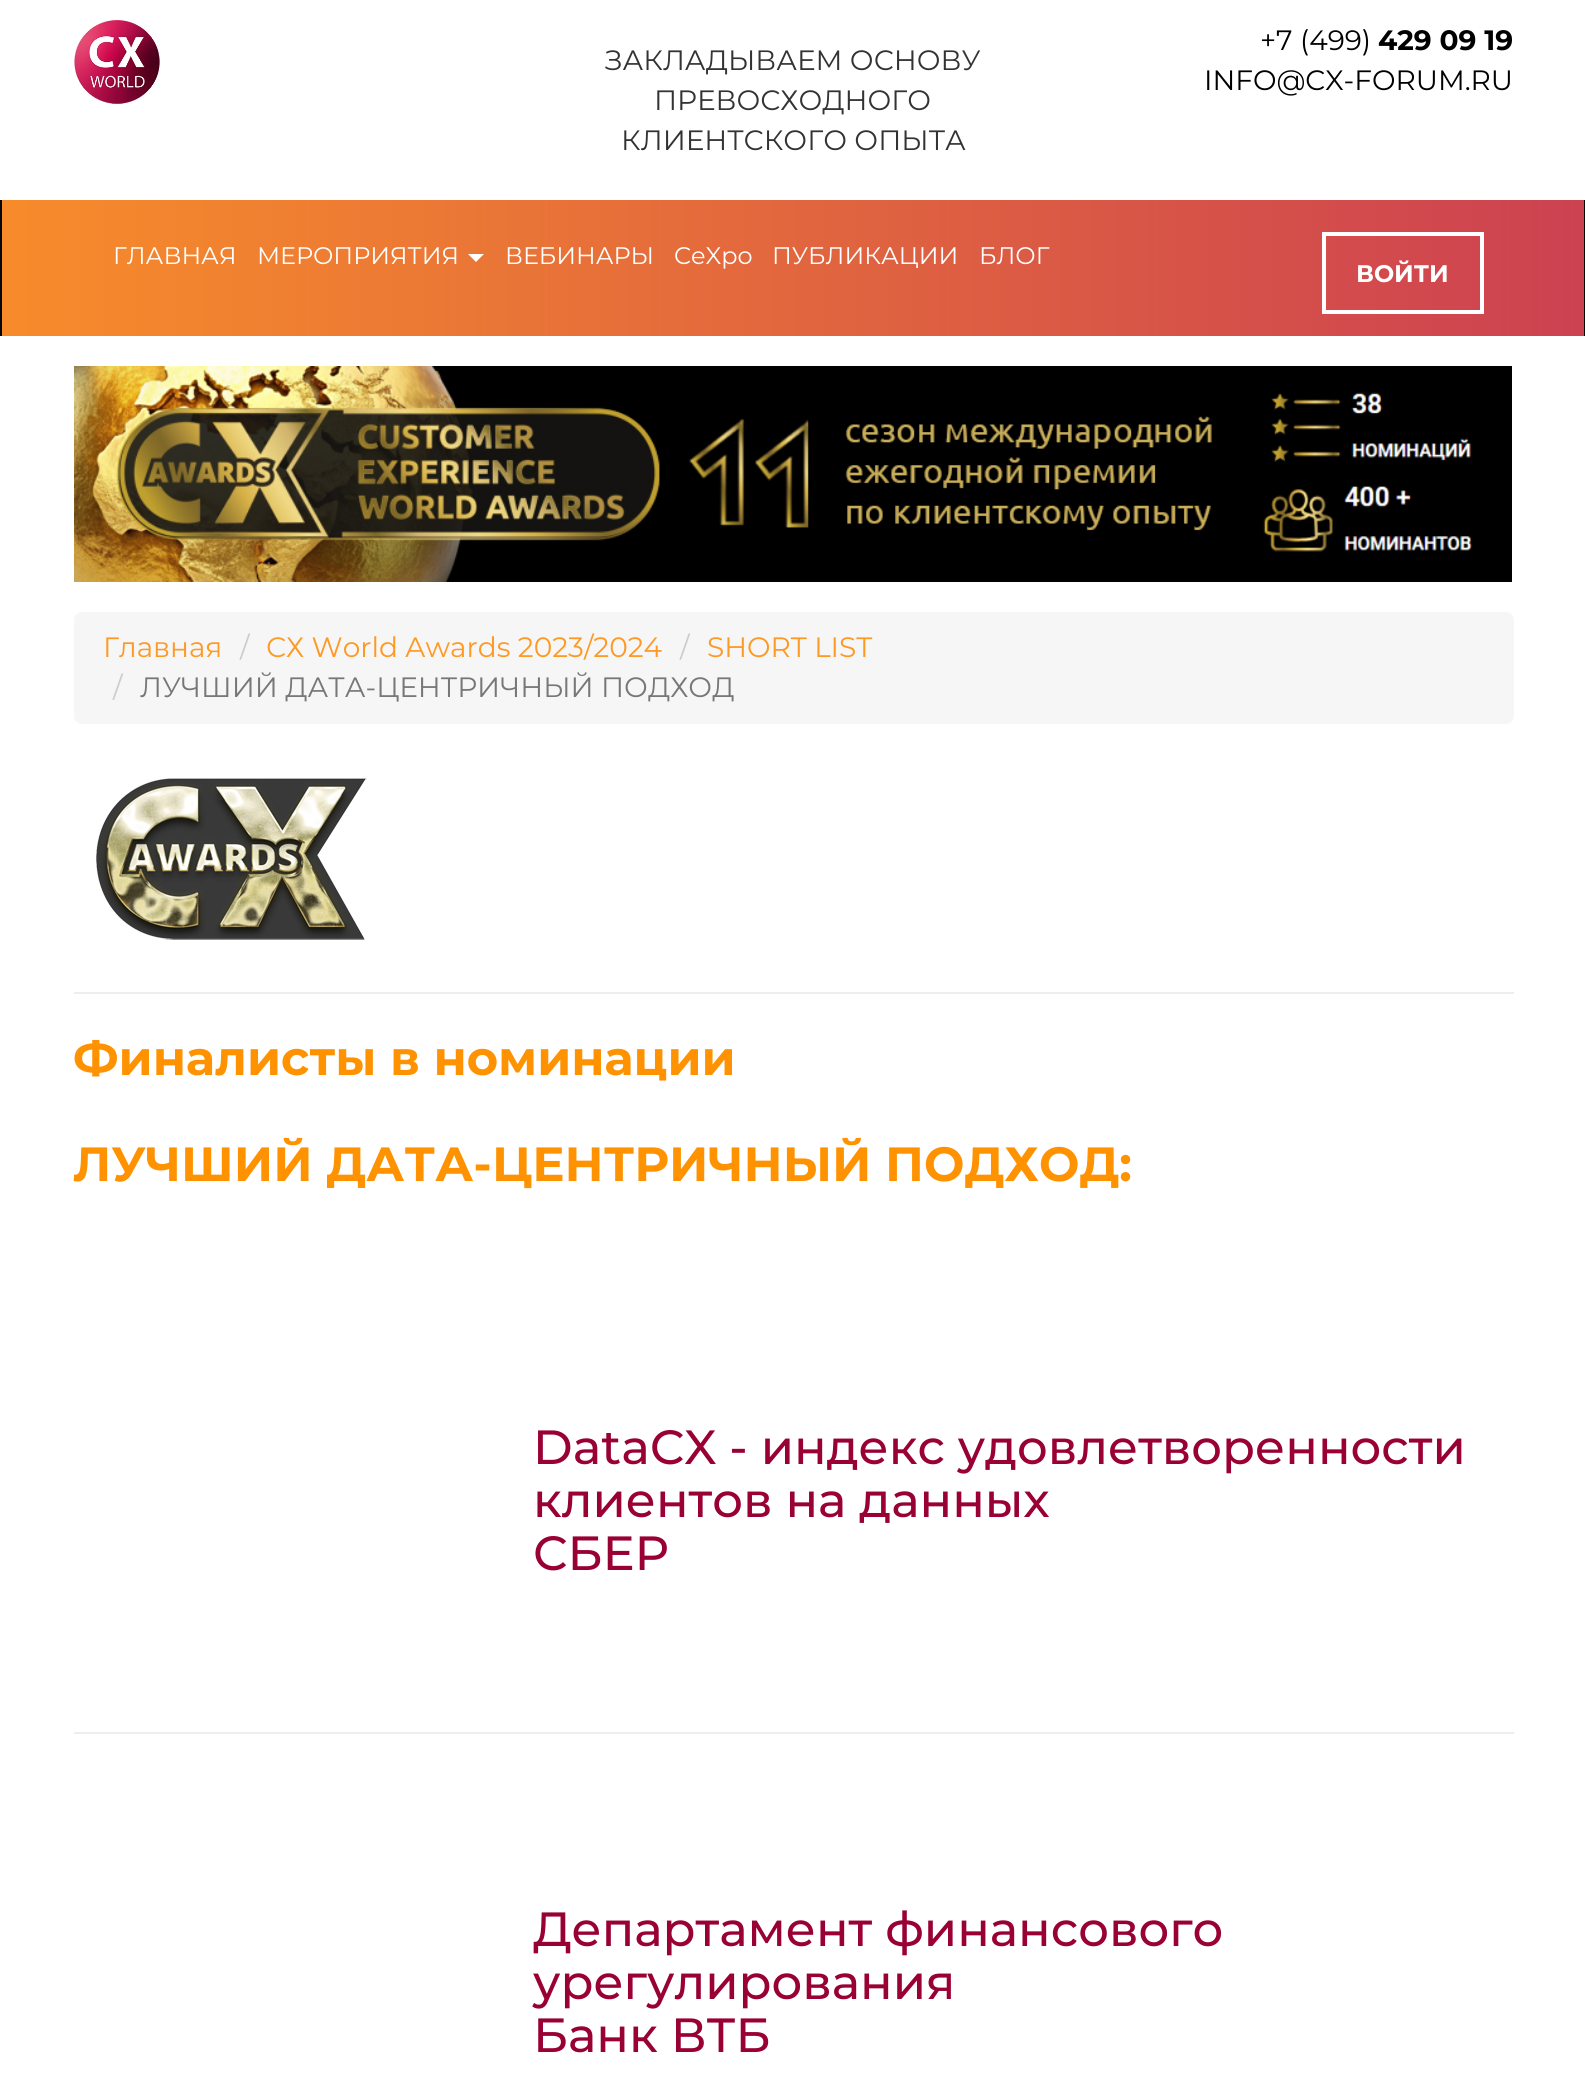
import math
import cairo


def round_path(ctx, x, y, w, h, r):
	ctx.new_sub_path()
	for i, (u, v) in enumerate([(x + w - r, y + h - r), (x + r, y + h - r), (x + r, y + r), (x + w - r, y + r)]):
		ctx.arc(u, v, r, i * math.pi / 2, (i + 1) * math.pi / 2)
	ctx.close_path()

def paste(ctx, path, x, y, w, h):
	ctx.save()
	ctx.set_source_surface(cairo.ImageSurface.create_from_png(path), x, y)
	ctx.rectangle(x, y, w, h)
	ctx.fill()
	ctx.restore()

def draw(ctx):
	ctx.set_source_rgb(1, 1, 1)
	ctx.paint()
	paste(ctx, 'media/1.png', 74, 20, 86, 84)
	ctx.select_font_face('Montserrat')
	ctx.set_font_size(28)
	ctx.set_source_rgb(0.2, 0.2, 0.2)
	for x, y, s in [
		(605, 70, 'ЗАКЛАДЫВАЕМ ОСНОВУ'),
		(654, 110, 'ПРЕВОСХОДНОГО'),
		(621, 150, 'КЛИЕНТСКОГО ОПЫТА'),
	]:
		ctx.move_to(x, y)
		ctx.show_text(s)
	ctx.set_source_rgb(0, 0, 0)
	ctx.move_to(1260, 50)
	ctx.show_text('+7 (499)')
	ctx.select_font_face('Montserrat', cairo.FONT_SLANT_NORMAL, cairo.FONT_WEIGHT_BOLD)
	ctx.move_to(1378, 50)
	ctx.show_text('429 09 19')
	ctx.select_font_face('Montserrat')
	ctx.move_to(1204, 90)
	ctx.show_text('INFO@CX-FORUM.RU')
	paste(ctx, 'media/2.png', 2, 200, 1582, 136)
	ctx.set_source_rgb(0.031, 0.031, 0.031)
	ctx.rectangle(1584, 200, 1, 136)
	ctx.fill()
	ctx.rectangle(0, 200, 2, 136)
	ctx.fill()
	ctx.set_font_size(24)
	ctx.set_source_rgb(1, 1, 1)
	ctx.move_to(113, 264)
	ctx.show_text('ГЛАВНАЯ')
	ctx.move_to(257, 264)
	ctx.show_text('МЕРОПРИЯТИЯ')
	ctx.new_path()
	ctx.move_to(468, 254)
	ctx.line_to(484, 254)
	ctx.line_to(476, 262)
	ctx.close_path()
	ctx.fill()
	for x, y, s in [
		(505, 264, 'ВЕБИНАРЫ'),
		(674, 264, 'CeXpo'),
		(772, 264, 'ПУБЛИКАЦИИ'),
		(979, 264, 'БЛОГ'),
	]:
		ctx.move_to(x, y)
		ctx.show_text(s)
	ctx.rectangle(1324, 234, 158, 78)
	ctx.set_line_width(4)
	ctx.stroke()
	ctx.select_font_face('Montserrat', cairo.FONT_SLANT_NORMAL, cairo.FONT_WEIGHT_BOLD)
	ctx.move_to(1356, 282)
	ctx.show_text('ВОЙТИ')
	paste(ctx, 'media/3.png', 74, 366, 1438, 216)
	ctx.set_source_rgb(0.961, 0.961, 0.961)
	round_path(ctx, 74, 612, 1440, 112, 8)
	ctx.fill()
	ctx.select_font_face('Montserrat')
	ctx.set_font_size(28)
	ctx.set_source_rgb(0.996, 0.6, 0.141)
	ctx.move_to(103, 657)
	ctx.show_text('Главная')
	ctx.set_source_rgb(0.8, 0.8, 0.8)
	ctx.move_to(240, 657)
	ctx.show_text('/')
	ctx.set_source_rgb(0.996, 0.6, 0.141)
	ctx.move_to(266, 657)
	ctx.show_text('СХ World Awards 2023/2024')
	ctx.set_source_rgb(0.8, 0.8, 0.8)
	ctx.move_to(680, 657)
	ctx.show_text('/')
	ctx.set_source_rgb(0.996, 0.6, 0.141)
	ctx.move_to(707, 657)
	ctx.show_text('SHORT LIST')
	ctx.set_source_rgb(0.8, 0.8, 0.8)
	ctx.move_to(113, 697)
	ctx.show_text('/')
	ctx.set_source_rgb(0.467, 0.467, 0.467)
	ctx.move_to(140, 697)
	ctx.show_text('ЛУЧШИЙ ДАТА-ЦЕНТРИЧНЫЙ ПОДХОД')
	paste(ctx, 'media/4.png', 96, 778, 271, 162)
	ctx.set_source_rgb(0.933, 0.933, 0.933)
	ctx.rectangle(74, 992, 1440, 2)
	ctx.fill()
	ctx.select_font_face('Montserrat', cairo.FONT_SLANT_NORMAL, cairo.FONT_WEIGHT_BOLD)
	ctx.set_font_size(48)
	ctx.set_source_rgb(1, 0.573, 0.004)
	ctx.move_to(73, 1075)
	ctx.show_text('Финалисты в номинации')
	ctx.move_to(73, 1181)
	ctx.show_text('ЛУЧШИЙ ДАТА-ЦЕНТРИЧНЫЙ ПОДХОД:')
	ctx.select_font_face('Montserrat Medium')
	ctx.set_source_rgb(0.6, 0, 0.2)
	for x, y, s in [
		(533, 1464, 'DataCX - индекс удовлетворенности'),
		(533, 1517, 'клиентов на данных'),
		(533, 1570, 'СБЕР'),
	]:
		ctx.move_to(x, y)
		ctx.show_text(s)
	ctx.set_source_rgb(0.933, 0.933, 0.933)
	ctx.rectangle(74, 1732, 1440, 2)
	ctx.fill()
	ctx.set_source_rgb(0.6, 0, 0.2)
	for x, y, s in [
		(533, 1946, 'Департамент финансового'),
		(533, 1999, 'урегулирования'),
		(533, 2052, 'Банк ВТБ'),
	]:
		ctx.move_to(x, y)
		ctx.show_text(s)


surface = cairo.ImageSurface(cairo.FORMAT_RGB24, 1585, 2089)
ctx = cairo.Context(surface)
options = cairo.FontOptions()
options.set_hint_metrics(cairo.HINT_METRICS_OFF)
options.set_hint_style(cairo.HINT_STYLE_NONE)
ctx.set_font_options(options)
ctx.set_miter_limit(4)
draw(ctx)
surface.write_to_png('image.png')
